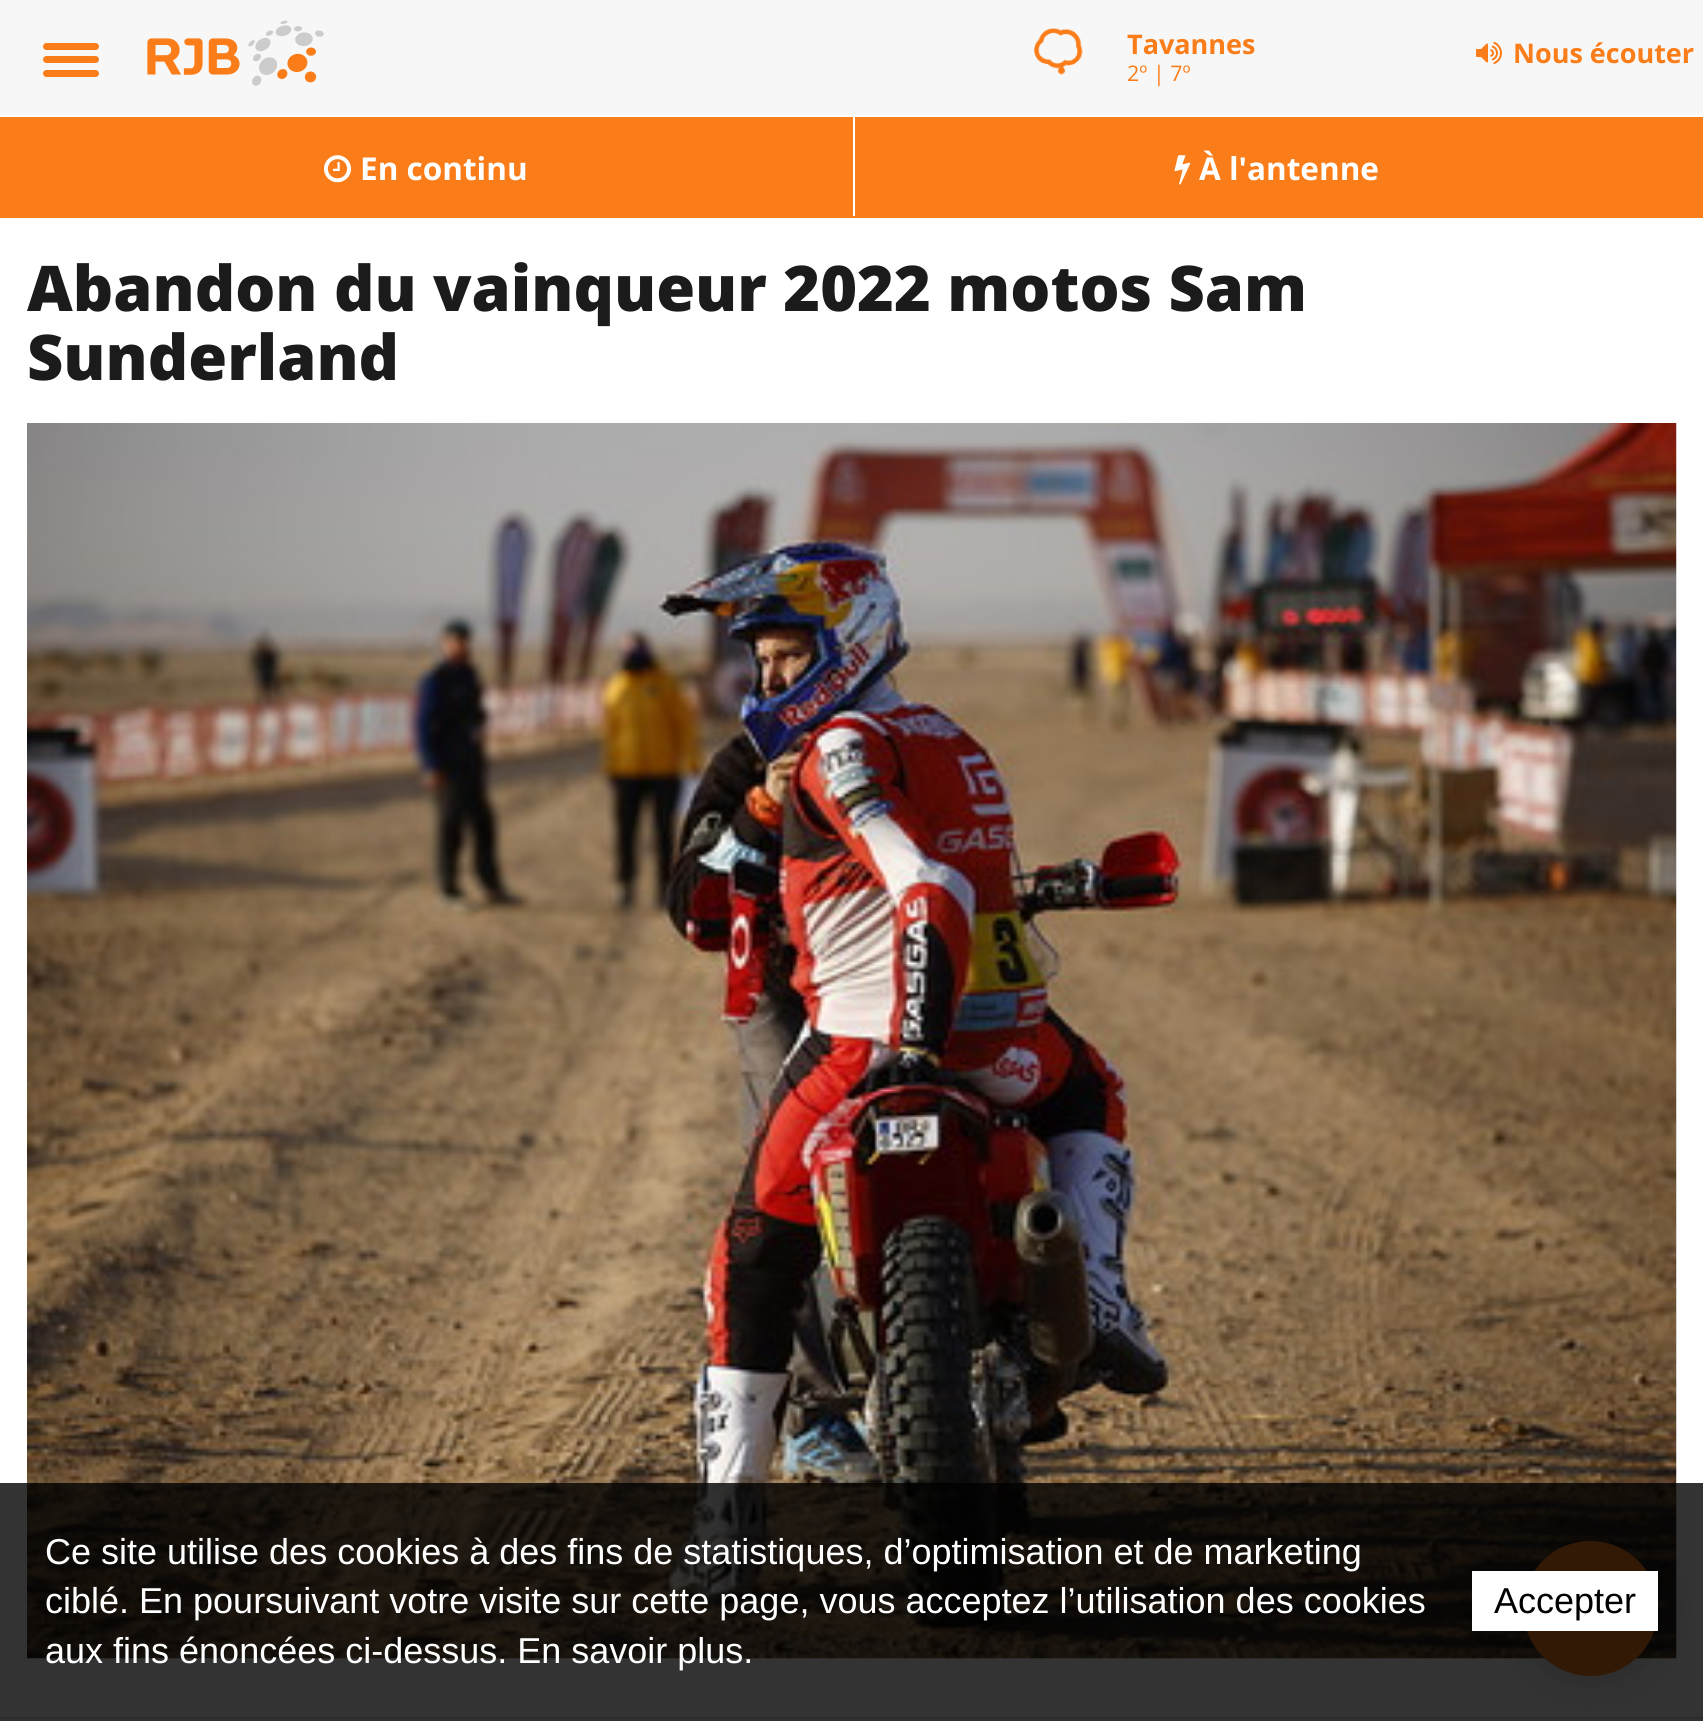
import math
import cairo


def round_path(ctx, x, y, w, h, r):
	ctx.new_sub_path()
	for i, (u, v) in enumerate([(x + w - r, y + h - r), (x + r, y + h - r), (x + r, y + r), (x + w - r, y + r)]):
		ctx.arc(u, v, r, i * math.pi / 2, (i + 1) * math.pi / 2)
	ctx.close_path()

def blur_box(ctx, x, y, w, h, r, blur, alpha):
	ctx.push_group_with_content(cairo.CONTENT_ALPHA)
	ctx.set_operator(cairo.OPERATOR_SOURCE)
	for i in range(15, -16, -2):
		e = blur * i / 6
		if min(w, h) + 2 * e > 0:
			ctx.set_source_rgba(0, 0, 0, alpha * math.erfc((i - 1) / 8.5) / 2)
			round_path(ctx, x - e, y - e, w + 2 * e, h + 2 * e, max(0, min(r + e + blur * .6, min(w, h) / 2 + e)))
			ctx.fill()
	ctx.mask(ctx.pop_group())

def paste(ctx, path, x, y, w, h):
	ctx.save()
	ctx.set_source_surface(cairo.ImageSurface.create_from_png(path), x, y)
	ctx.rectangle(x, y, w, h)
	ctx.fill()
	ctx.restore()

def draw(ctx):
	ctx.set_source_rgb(1, 1, 1)
	ctx.paint()
	ctx.set_source_rgb(0.965, 0.965, 0.965)
	ctx.rectangle(0, 0, 1703, 115)
	ctx.fill()
	ctx.set_source_rgb(0.984, 0.49, 0.098)
	round_path(ctx, 43, 56, 56, 7, 3.5)
	ctx.fill()
	round_path(ctx, 43, 43, 56, 7, 3.5)
	ctx.fill()
	round_path(ctx, 43, 70, 56, 7, 3.5)
	ctx.fill()
	paste(ctx, 'media/1.png', 147, 20, 177, 66)
	paste(ctx, 'media/2.png', 1034, 28, 49, 47)
	ctx.select_font_face('Open Sans', cairo.FONT_SLANT_NORMAL, cairo.FONT_WEIGHT_BOLD)
	ctx.set_font_size(27)
	ctx.move_to(1127, 54)
	ctx.show_text('Tavannes')
	ctx.select_font_face('Open Sans')
	ctx.set_font_size(21.5)
	ctx.move_to(1127, 81)
	ctx.show_text('2º | 7º')
	paste(ctx, 'media/3.png', 1476, 41, 26, 24)
	ctx.select_font_face('Open Sans', cairo.FONT_SLANT_NORMAL, cairo.FONT_WEIGHT_BOLD)
	ctx.set_font_size(27)
	ctx.move_to(1513, 63)
	ctx.show_text('Nous écouter')
	ctx.rectangle(0, 117, 1703, 101)
	ctx.fill()
	paste(ctx, 'media/4.png', 324, 155, 27, 28)
	ctx.set_font_size(31.5)
	ctx.set_source_rgb(1, 1, 1)
	ctx.move_to(360, 180)
	ctx.show_text('En continu')
	ctx.rectangle(853, 117, 2, 99)
	ctx.fill()
	paste(ctx, 'media/5.png', 1174, 155, 17, 30)
	ctx.move_to(1199, 180)
	ctx.show_text('À l\'antenne')
	ctx.select_font_face('Open Sans ExtraBold')
	ctx.set_font_size(63)
	ctx.set_source_rgb(0.106, 0.106, 0.106)
	ctx.move_to(27, 311)
	ctx.show_text('Abandon du vainqueur 2022 motos Sam')
	ctx.move_to(27, 380)
	ctx.show_text('Sunderland')
	paste(ctx, 'media/6.png', 27, 423, 1650, 1236)
	ctx.set_source_rgb(0, 0, 0)
	blur_box(ctx, 1523, 1541, 135, 135, 67.5, 22.5, 0.2)
	ctx.set_source_rgb(0.984, 0.49, 0.098)
	ctx.arc(1590.5, 1608.5, 67.5, 0, 2 * math.pi)
	ctx.fill()
	ctx.set_source_rgb(0.941, 0.941, 0.941)
	ctx.rectangle(0, 1719, 1703, 2)
	ctx.fill()
	ctx.set_source_rgb(0.878, 0.878, 0.878)
	ctx.rectangle(0, 1717, 1703, 2)
	ctx.fill()
	ctx.set_source_rgba(0, 0, 0, 0.8)
	ctx.rectangle(0, 1483, 1703, 238)
	ctx.fill()
	ctx.select_font_face('Liberation Sans')
	ctx.set_font_size(36)
	ctx.set_source_rgb(1, 1, 1)
	for x, y, s in [
		(45, 1564, 'Ce site utilise des cookies à des fins de statistiques, d’optimisation et de marketing'),
		(45, 1613, 'ciblé. En poursuivant votre visite sur cette page, vous acceptez l’utilisation des cookies'),
		(45, 1663, 'aux fins énoncées ci-dessus. En savoir plus.'),
	]:
		ctx.move_to(x, y)
		ctx.show_text(s)
	ctx.rectangle(1472, 1571, 186, 60)
	ctx.fill()
	ctx.set_source_rgb(0, 0, 0)
	ctx.move_to(1494, 1613)
	ctx.show_text('Accepter')


surface = cairo.ImageSurface(cairo.FORMAT_RGB24, 1703, 1721)
ctx = cairo.Context(surface)
options = cairo.FontOptions()
options.set_hint_metrics(cairo.HINT_METRICS_OFF)
options.set_hint_style(cairo.HINT_STYLE_NONE)
ctx.set_font_options(options)
ctx.set_miter_limit(4)
draw(ctx)
surface.write_to_png('image.png')
